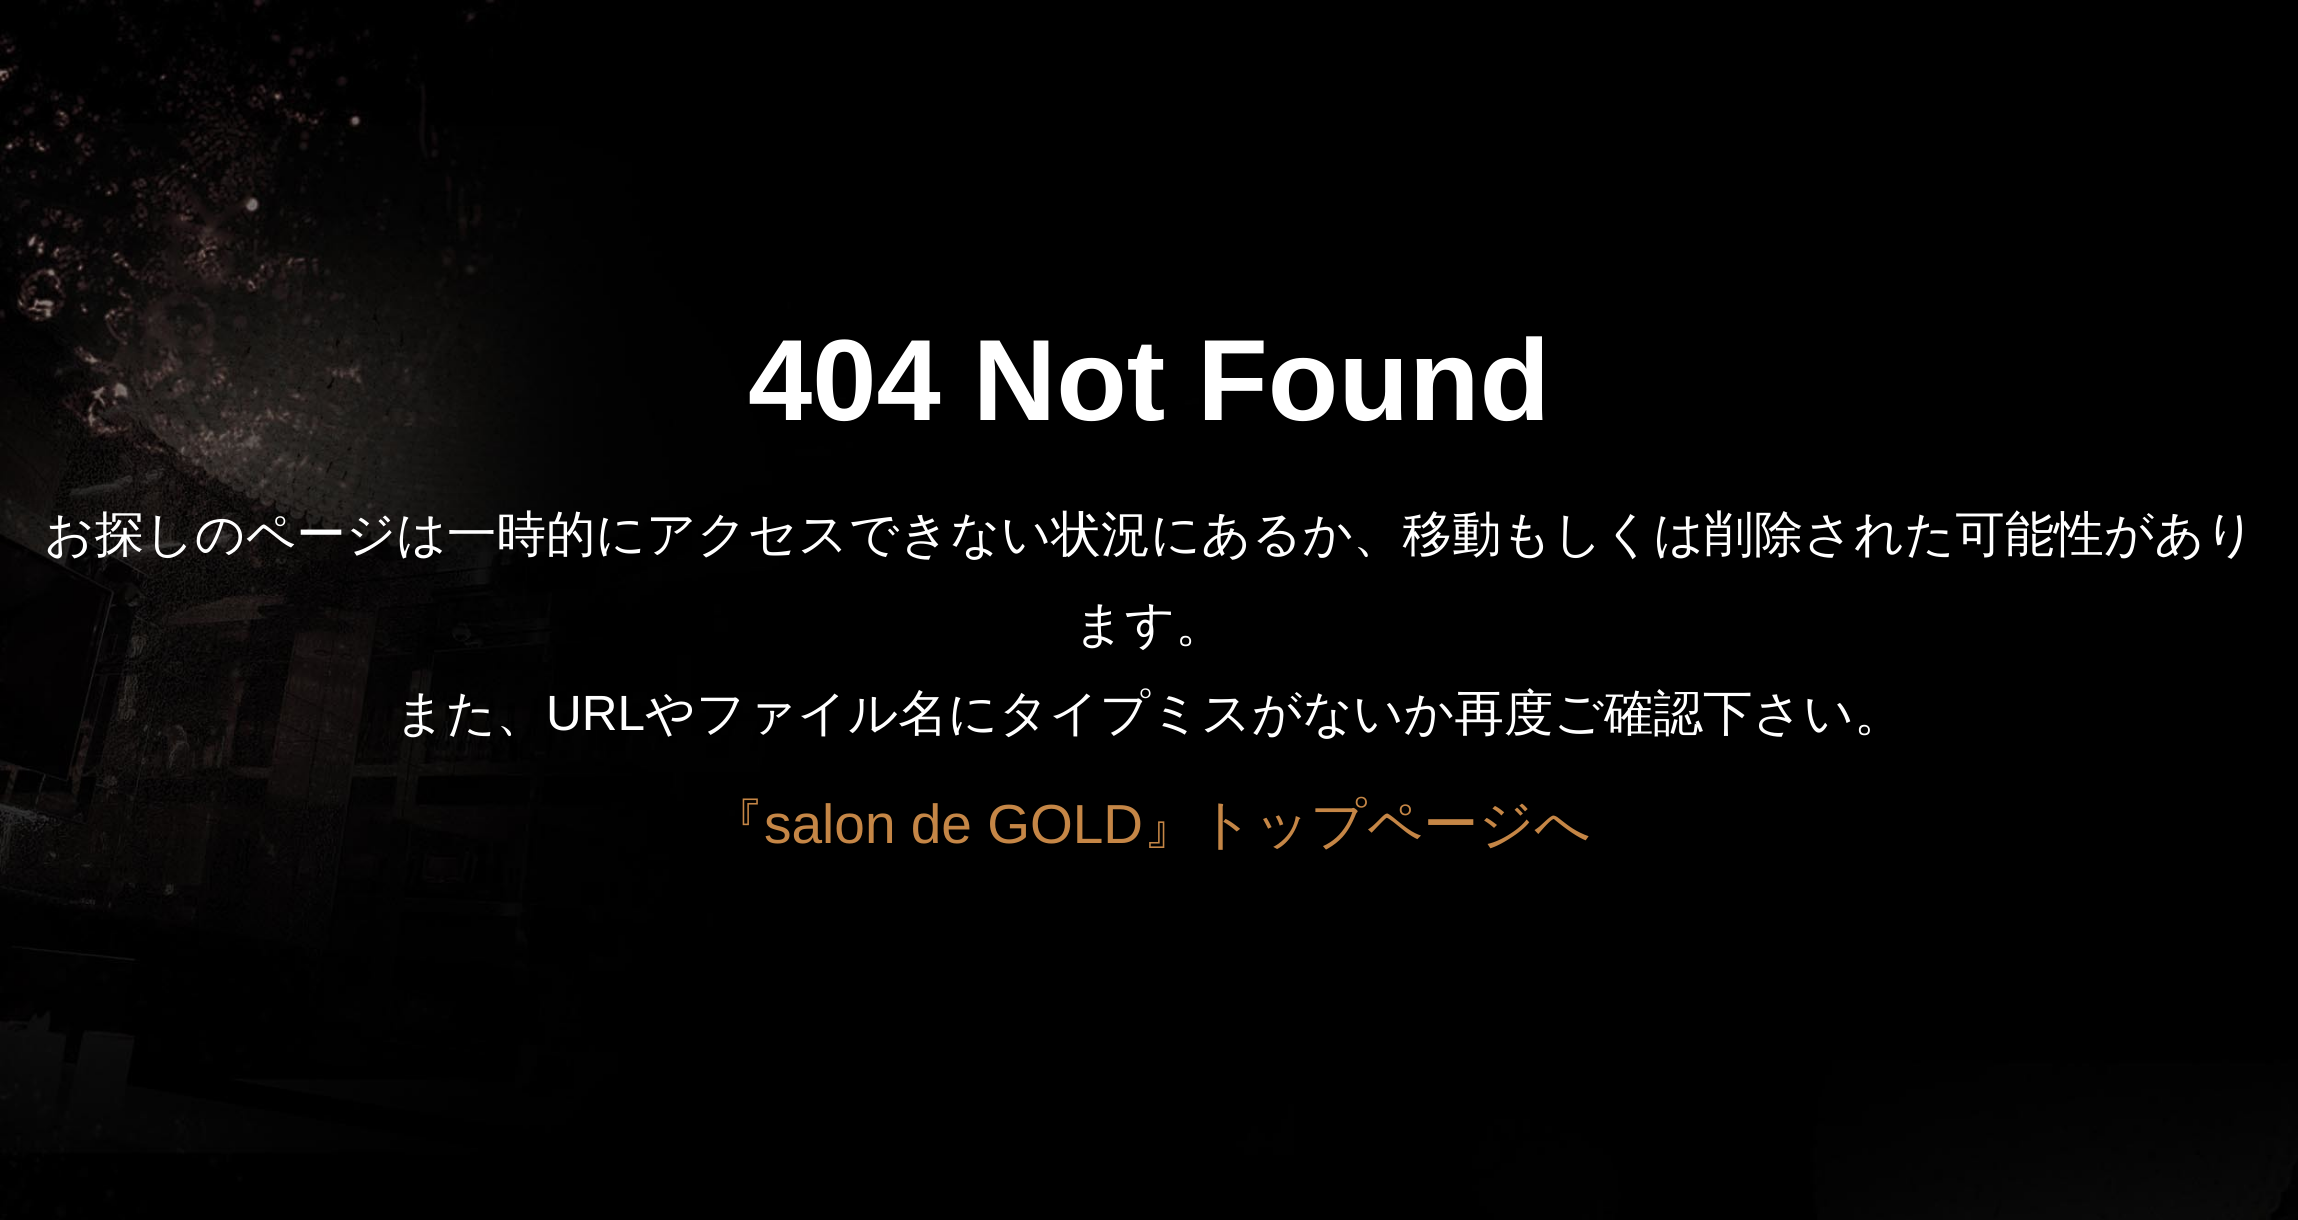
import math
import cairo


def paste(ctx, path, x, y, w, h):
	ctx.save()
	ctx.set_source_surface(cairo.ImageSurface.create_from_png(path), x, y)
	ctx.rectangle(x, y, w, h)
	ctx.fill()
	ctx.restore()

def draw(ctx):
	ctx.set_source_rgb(1, 1, 1)
	ctx.paint()
	paste(ctx, 'media/1.png', 0, 0, 2298, 1220)
	ctx.select_font_face('Liberation Sans', cairo.FONT_SLANT_NORMAL, cairo.FONT_WEIGHT_BOLD)
	ctx.set_font_size(115.5)
	ctx.set_source_rgb(1, 1, 1)
	ctx.move_to(748, 420)
	ctx.show_text('404 Not Found')
	ctx.select_font_face('WenQuanYi Zen Hei Medium')
	ctx.set_font_size(49.5)
	for x, y, s in [
		(44, 551, 'お探しのページは一時的にアクセスできない状況にあるか、移動もしくは削除された可能性があり'),
		(1074, 641, 'ます。'),
		(395, 730, 'また、'),
	]:
		ctx.move_to(x, y)
		ctx.show_text(s)
	ctx.select_font_face('Liberation Sans')
	ctx.move_to(546, 730)
	ctx.show_text('URL')
	ctx.select_font_face('WenQuanYi Zen Hei Medium')
	ctx.move_to(645, 730)
	ctx.show_text('やファイル名にタイプミスがないか再度ご確認下さい。')
	ctx.set_font_size(55)
	ctx.set_source_rgb(0.773, 0.525, 0.275)
	ctx.move_to(709, 843)
	ctx.show_text('『')
	ctx.select_font_face('Liberation Sans')
	ctx.move_to(764, 843)
	ctx.show_text('salon de GOLD')
	ctx.select_font_face('WenQuanYi Zen Hei Medium')
	ctx.move_to(1143, 843)
	ctx.show_text('』トップページへ')


surface = cairo.ImageSurface(cairo.FORMAT_RGB24, 2298, 1220)
ctx = cairo.Context(surface)
options = cairo.FontOptions()
options.set_hint_metrics(cairo.HINT_METRICS_OFF)
options.set_hint_style(cairo.HINT_STYLE_NONE)
ctx.set_font_options(options)
ctx.set_miter_limit(4)
draw(ctx)
surface.write_to_png('image.png')
